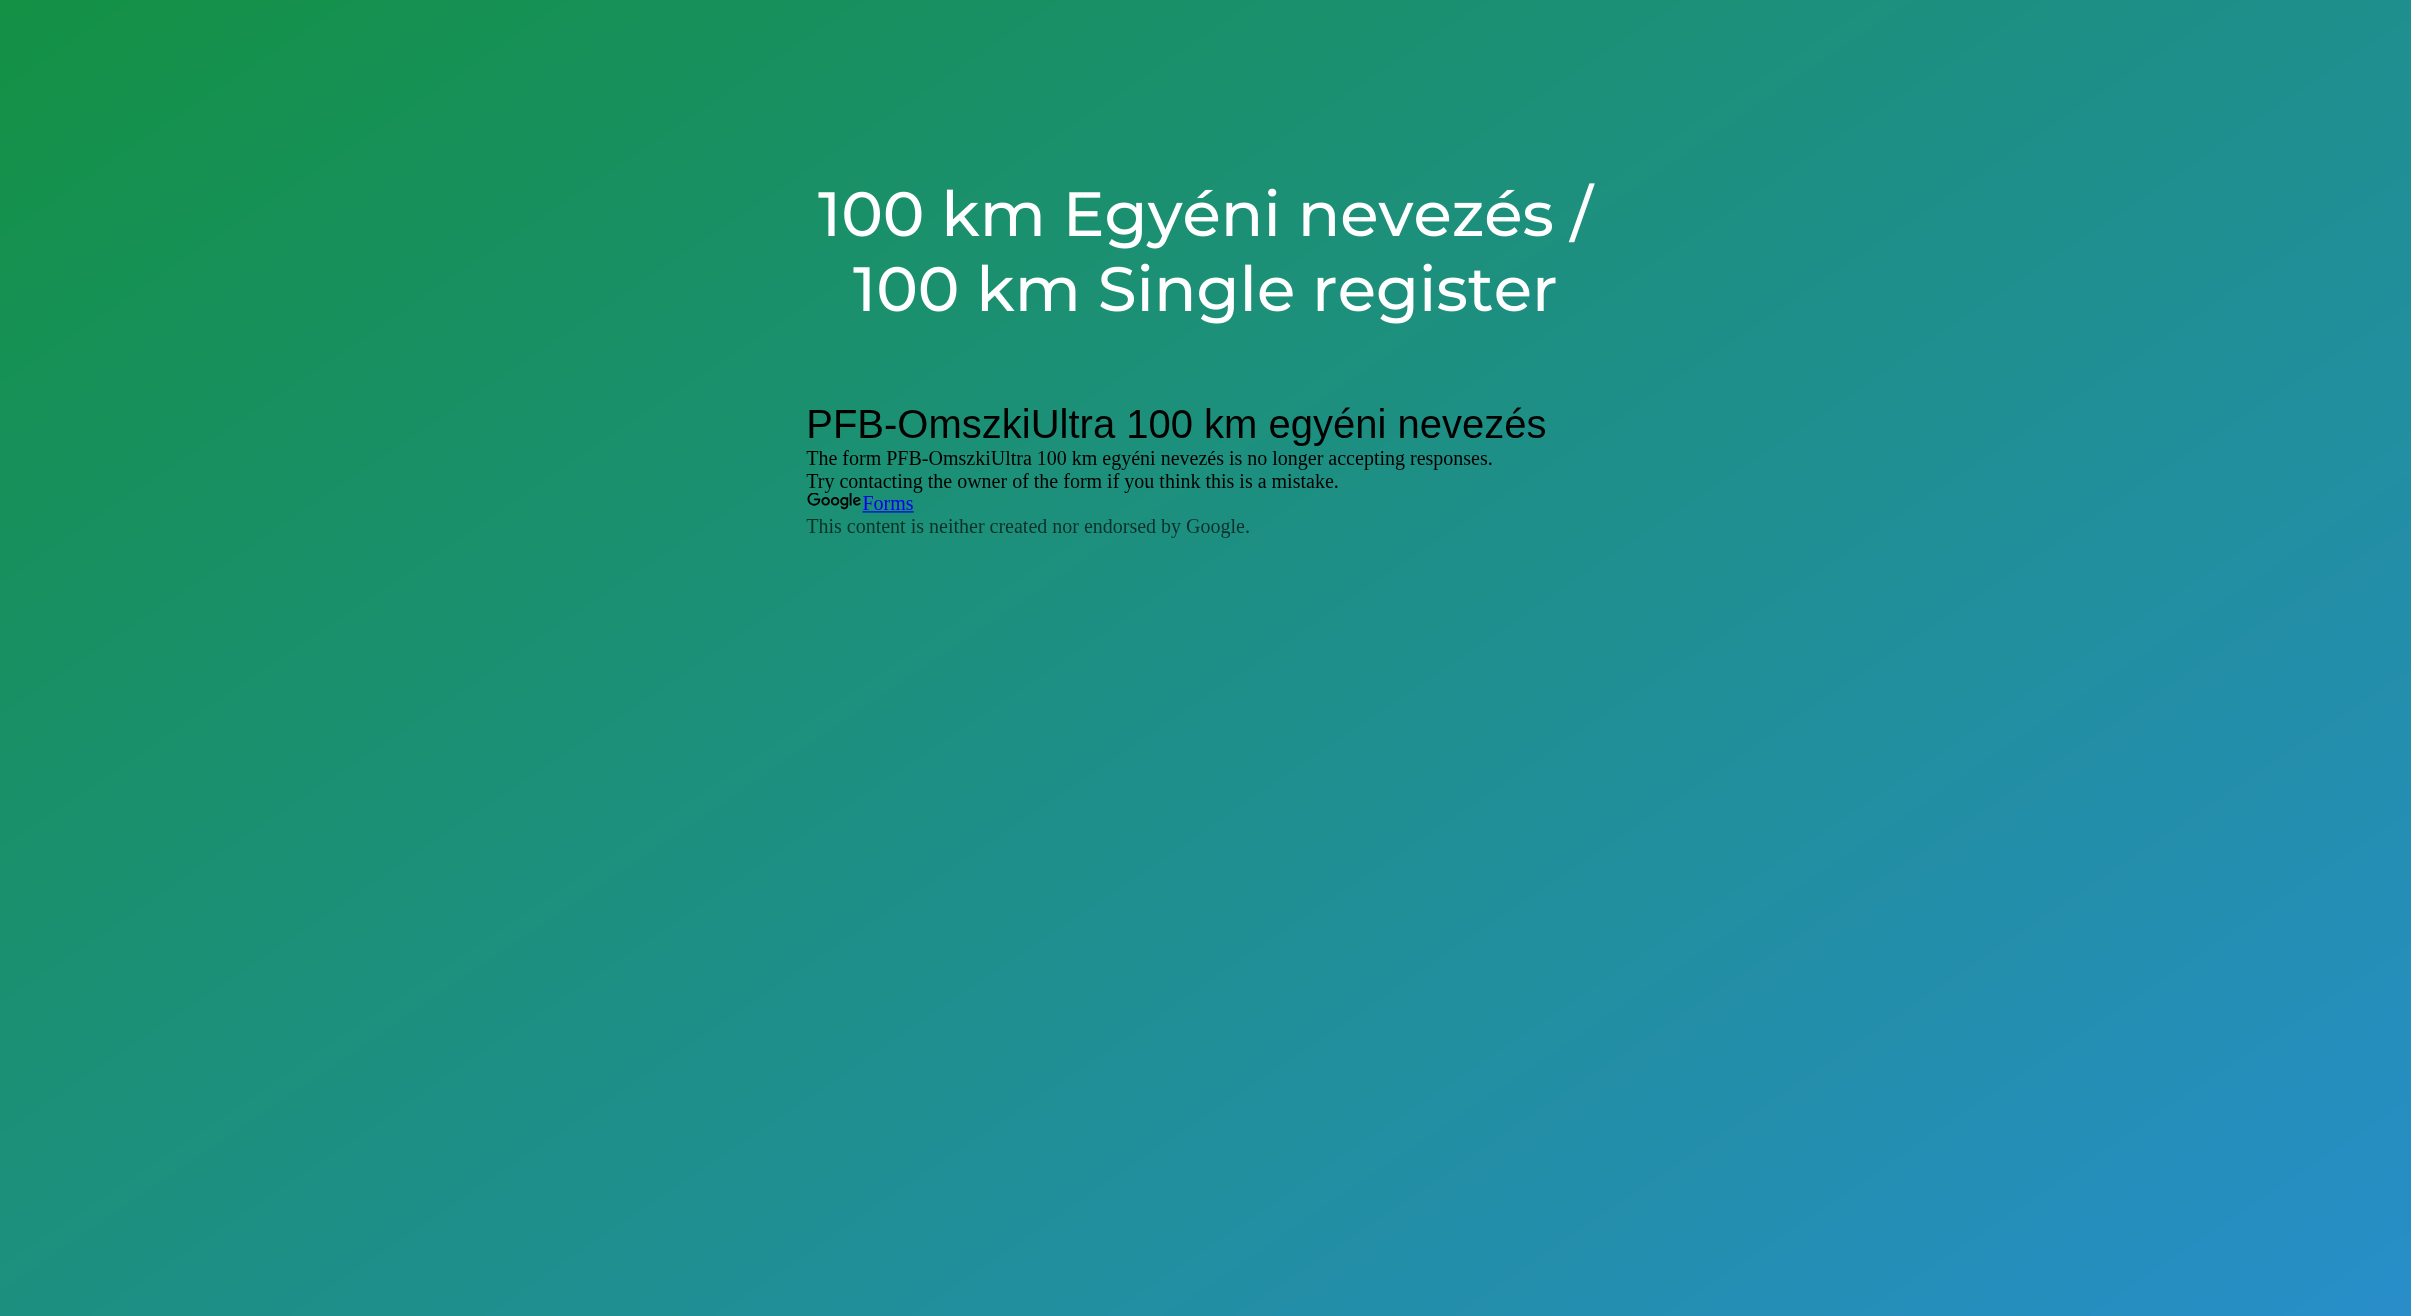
import math
import cairo


def paste(ctx, path, x, y, w, h):
	ctx.save()
	ctx.set_source_surface(cairo.ImageSurface.create_from_png(path), x, y)
	ctx.rectangle(x, y, w, h)
	ctx.fill()
	ctx.restore()

def draw(ctx):
	ctx.set_source_rgb(1, 1, 1)
	ctx.paint()
	gradient = cairo.LinearGradient(249, -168, 2162, 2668)
	gradient.add_color_stop_rgba(0, 0.078, 0.569, 0.267, 1)
	gradient.add_color_stop_rgba(1, 0.188, 0.549, 1, 1)
	ctx.set_source(gradient)
	ctx.rectangle(0, 0, 2411, 1316)
	ctx.fill()
	ctx.select_font_face('Montserrat Medium')
	ctx.set_font_size(62.5)
	ctx.set_source_rgb(1, 1, 1)
	ctx.move_to(818, 236)
	ctx.show_text('100 km Egyéni nevezés /')
	ctx.move_to(853, 311)
	ctx.show_text('100 km Single register')
	paste(ctx, 'media/1.png', 806, 407, 739, 131)


surface = cairo.ImageSurface(cairo.FORMAT_RGB24, 2411, 1316)
ctx = cairo.Context(surface)
options = cairo.FontOptions()
options.set_hint_metrics(cairo.HINT_METRICS_OFF)
options.set_hint_style(cairo.HINT_STYLE_NONE)
ctx.set_font_options(options)
ctx.set_miter_limit(4)
draw(ctx)
surface.write_to_png('image.png')
